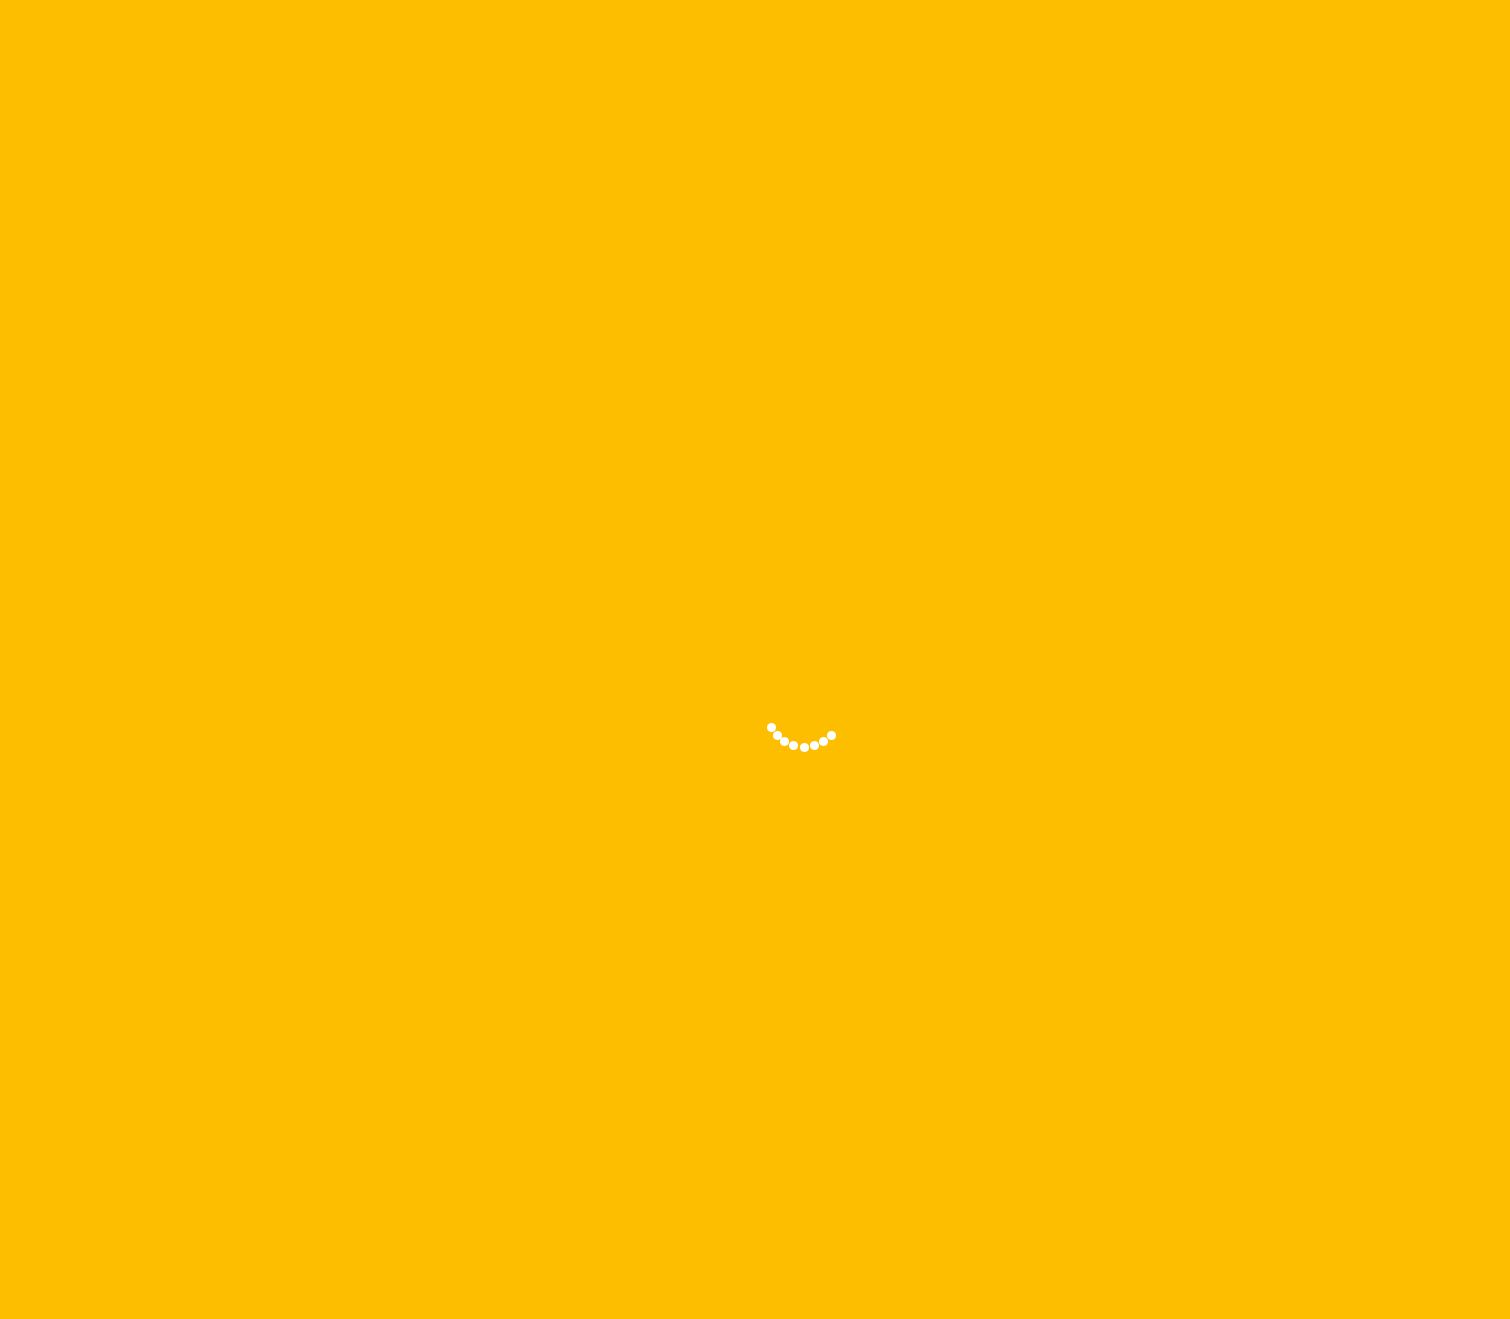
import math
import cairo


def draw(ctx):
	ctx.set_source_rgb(0.996, 0.745, 0)
	ctx.paint()
	ctx.set_source_rgb(1, 1, 1)
	ctx.arc(784.5, 741.5, 4.5, 0, 2 * math.pi)
	ctx.fill()
	ctx.arc(777.5, 735.5, 4.5, 0, 2 * math.pi)
	ctx.fill()
	ctx.arc(771.5, 727.5, 4.5, 0, 2 * math.pi)
	ctx.fill()
	ctx.arc(831.5, 735.5, 4.5, 0, 2 * math.pi)
	ctx.fill()
	ctx.arc(793.5, 745.5, 4.5, 0, 2 * math.pi)
	ctx.fill()
	ctx.arc(804.5, 747.5, 4.5, 0, 2 * math.pi)
	ctx.fill()
	ctx.arc(814.5, 745.5, 4.5, 0, 2 * math.pi)
	ctx.fill()
	ctx.arc(823.5, 741.5, 4.5, 0, 2 * math.pi)
	ctx.fill()


surface = cairo.ImageSurface(cairo.FORMAT_RGB24, 1510, 1319)
ctx = cairo.Context(surface)
options = cairo.FontOptions()
options.set_hint_metrics(cairo.HINT_METRICS_OFF)
options.set_hint_style(cairo.HINT_STYLE_NONE)
ctx.set_font_options(options)
ctx.set_miter_limit(4)
draw(ctx)
surface.write_to_png('image.png')
